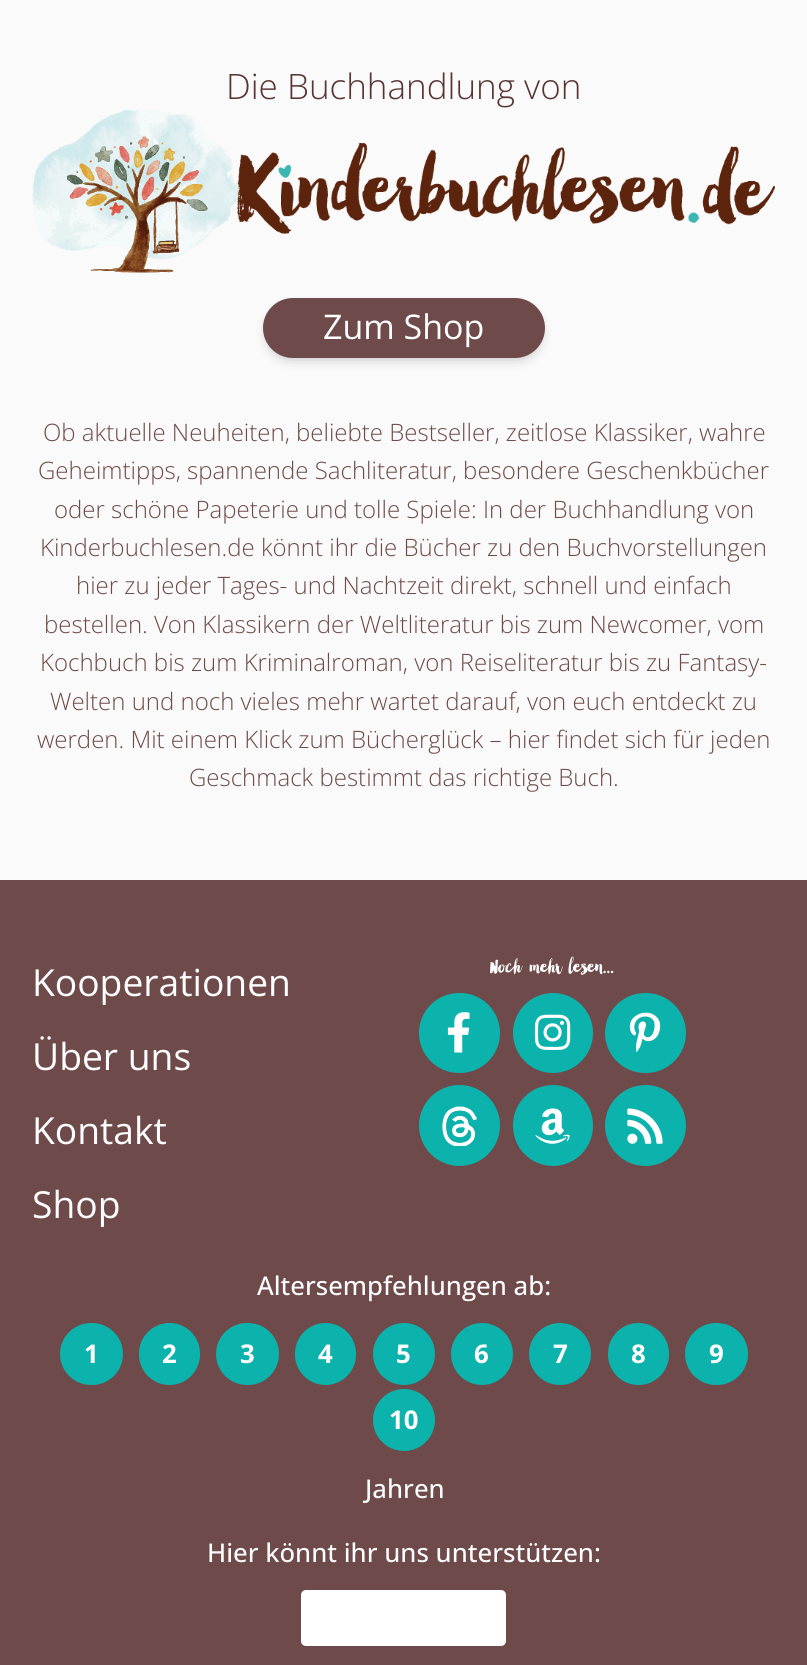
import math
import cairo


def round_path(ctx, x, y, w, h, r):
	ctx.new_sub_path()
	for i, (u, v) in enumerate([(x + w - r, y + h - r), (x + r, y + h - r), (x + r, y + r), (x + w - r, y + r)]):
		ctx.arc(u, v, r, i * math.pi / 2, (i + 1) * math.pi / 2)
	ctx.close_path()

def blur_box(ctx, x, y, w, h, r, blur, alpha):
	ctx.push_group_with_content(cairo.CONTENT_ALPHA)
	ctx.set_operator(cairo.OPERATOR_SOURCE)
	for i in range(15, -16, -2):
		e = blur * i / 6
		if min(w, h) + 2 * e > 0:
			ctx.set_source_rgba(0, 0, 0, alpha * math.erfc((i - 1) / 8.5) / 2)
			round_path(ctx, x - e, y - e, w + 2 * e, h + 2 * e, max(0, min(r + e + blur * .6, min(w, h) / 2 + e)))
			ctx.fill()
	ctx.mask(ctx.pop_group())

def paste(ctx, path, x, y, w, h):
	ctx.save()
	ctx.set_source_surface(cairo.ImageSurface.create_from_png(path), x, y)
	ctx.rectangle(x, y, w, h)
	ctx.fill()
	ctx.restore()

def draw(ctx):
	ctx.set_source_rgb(0.976, 0.98, 0.973)
	ctx.paint()
	ctx.select_font_face('Open Sans Light')
	ctx.set_font_size(35)
	ctx.set_source_rgb(0.345, 0.204, 0.204)
	ctx.move_to(226, 99)
	ctx.show_text('Die Buchhandlung von')
	paste(ctx, 'media/1.png', 32, 109, 743, 164)
	ctx.set_source_rgb(0, 0, 0)
	blur_box(ctx, 268, 308, 272, 50, 25, 6, 0.26)
	ctx.set_source_rgb(0.431, 0.29, 0.29)
	round_path(ctx, 265, 300, 278, 56, 28)
	ctx.fill_preserve()
	ctx.set_line_width(4)
	ctx.stroke()
	ctx.select_font_face('Open Sans')
	ctx.set_font_size(34)
	ctx.set_source_rgb(1, 1, 1)
	ctx.move_to(323, 339)
	ctx.show_text('Zum Shop')
	ctx.select_font_face('Open Sans Light')
	ctx.set_font_size(24)
	ctx.set_source_rgb(0.431, 0.29, 0.29)
	for x, y, s in [
		(43, 441, 'Ob aktuelle Neuheiten, beliebte Bestseller, zeitlose Klassiker, wahre'),
		(38, 479, 'Geheimtipps, spannende Sachliteratur, besondere Geschenkbücher'),
		(54, 518, 'oder schöne Papeterie und tolle Spiele: In der Buchhandlung von'),
		(40, 556, 'Kinderbuchlesen.de könnt ihr die Bücher zu den Buchvorstellungen'),
		(76, 594, 'hier zu jeder Tages- und Nachtzeit direkt, schnell und einfach'),
		(44, 633, 'bestellen. Von Klassikern der Weltliteratur bis zum Newcomer, vom'),
		(40, 671, 'Kochbuch bis zum Kriminalroman, von Reiseliteratur bis zu Fantasy-'),
		(50, 710, 'Welten und noch vieles mehr wartet darauf, von euch entdeckt zu'),
		(37, 748, 'werden. Mit einem Klick zum Bücherglück – hier findet sich für jeden'),
		(189, 786, 'Geschmack bestimmt das richtige Buch.'),
	]:
		ctx.move_to(x, y)
		ctx.show_text(s)
	ctx.rectangle(0, 880, 807, 785)
	ctx.fill()
	ctx.select_font_face('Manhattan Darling')
	ctx.set_font_size(22)
	ctx.set_source_rgb(1, 1, 1)
	ctx.move_to(490, 979)
	ctx.show_text('Noch mehr lesen...')
	ctx.set_source_rgb(0.047, 0.698, 0.675)
	round_path(ctx, 419, 993, 81, 80, 40)
	ctx.fill()
	paste(ctx, 'media/2.png', 447, 1012, 23, 41)
	ctx.arc(553, 1033, 40, 0, 2 * math.pi)
	ctx.fill()
	paste(ctx, 'media/3.png', 534, 1014, 37, 36)
	round_path(ctx, 605, 993, 81, 80, 40)
	ctx.fill()
	paste(ctx, 'media/4.png', 629, 1012, 32, 40)
	ctx.arc(459.5, 1125.5, 40.5, 0, 2 * math.pi)
	ctx.fill()
	paste(ctx, 'media/5.png', 442, 1106, 35, 40)
	round_path(ctx, 513, 1085, 80, 81, 40)
	ctx.fill()
	paste(ctx, 'media/6.png', 535, 1108, 35, 36)
	ctx.arc(645.5, 1125.5, 40.5, 0, 2 * math.pi)
	ctx.fill()
	paste(ctx, 'media/7.png', 627, 1108, 36, 36)
	ctx.select_font_face('Open Sans')
	ctx.set_font_size(37.25)
	ctx.set_source_rgb(1, 1, 1)
	for x, y, s in [
		(32, 996, 'Kooperationen'),
		(32, 1070, 'Über uns'),
		(32, 1144, 'Kontakt'),
		(32, 1218, 'Shop'),
	]:
		ctx.move_to(x, y)
		ctx.show_text(s)
	ctx.select_font_face('Open Sans Medium')
	ctx.set_font_size(25.8)
	ctx.move_to(257, 1295)
	ctx.show_text('Altersempfehlungen ab:')
	ctx.set_source_rgb(0.047, 0.698, 0.675)
	round_path(ctx, 60, 1323, 63, 62, 31)
	ctx.fill()
	ctx.select_font_face('Open Sans', cairo.FONT_SLANT_NORMAL, cairo.FONT_WEIGHT_BOLD)
	ctx.set_source_rgb(1, 1, 1)
	ctx.move_to(84, 1363)
	ctx.show_text('1')
	ctx.set_source_rgb(0.047, 0.698, 0.675)
	round_path(ctx, 139, 1323, 61, 62, 30.5)
	ctx.fill()
	ctx.set_source_rgb(1, 1, 1)
	ctx.move_to(162, 1363)
	ctx.show_text('2')
	ctx.set_source_rgb(0.047, 0.698, 0.675)
	round_path(ctx, 216, 1323, 63, 62, 31)
	ctx.fill()
	ctx.set_source_rgb(1, 1, 1)
	ctx.move_to(240, 1363)
	ctx.show_text('3')
	ctx.set_source_rgb(0.047, 0.698, 0.675)
	round_path(ctx, 295, 1323, 61, 62, 30.5)
	ctx.fill()
	ctx.set_source_rgb(1, 1, 1)
	ctx.move_to(318, 1363)
	ctx.show_text('4')
	ctx.set_source_rgb(0.047, 0.698, 0.675)
	ctx.new_path()
	ctx.arc(404, 1354, 31, 0, 2 * math.pi)
	ctx.fill()
	ctx.set_source_rgb(1, 1, 1)
	ctx.move_to(396, 1363)
	ctx.show_text('5')
	ctx.set_source_rgb(0.047, 0.698, 0.675)
	ctx.new_path()
	ctx.arc(482, 1354, 31, 0, 2 * math.pi)
	ctx.fill()
	ctx.set_source_rgb(1, 1, 1)
	ctx.move_to(474, 1363)
	ctx.show_text('6')
	ctx.set_source_rgb(0.047, 0.698, 0.675)
	ctx.new_path()
	ctx.arc(560, 1354, 31, 0, 2 * math.pi)
	ctx.fill()
	ctx.set_source_rgb(1, 1, 1)
	ctx.move_to(553, 1363)
	ctx.show_text('7')
	ctx.set_source_rgb(0.047, 0.698, 0.675)
	round_path(ctx, 608, 1323, 61, 62, 30.5)
	ctx.fill()
	ctx.set_source_rgb(1, 1, 1)
	ctx.move_to(631, 1363)
	ctx.show_text('8')
	ctx.set_source_rgb(0.047, 0.698, 0.675)
	round_path(ctx, 685, 1323, 63, 62, 31)
	ctx.fill()
	ctx.set_source_rgb(1, 1, 1)
	ctx.move_to(709, 1363)
	ctx.show_text('9')
	ctx.set_source_rgb(0.047, 0.698, 0.675)
	ctx.new_path()
	ctx.arc(404, 1420, 31, 0, 2 * math.pi)
	ctx.fill()
	ctx.set_source_rgb(1, 1, 1)
	ctx.move_to(389, 1429)
	ctx.show_text('10')
	ctx.select_font_face('Open Sans Medium')
	ctx.move_to(365, 1498)
	ctx.show_text('Jahren')
	ctx.move_to(207, 1562)
	ctx.show_text('Hier könnt ihr uns unterstützen:')
	round_path(ctx, 301, 1590, 205, 56, 5)
	ctx.fill()


surface = cairo.ImageSurface(cairo.FORMAT_RGB24, 807, 1665)
ctx = cairo.Context(surface)
options = cairo.FontOptions()
options.set_hint_metrics(cairo.HINT_METRICS_OFF)
options.set_hint_style(cairo.HINT_STYLE_NONE)
ctx.set_font_options(options)
ctx.set_miter_limit(4)
draw(ctx)
surface.write_to_png('image.png')
